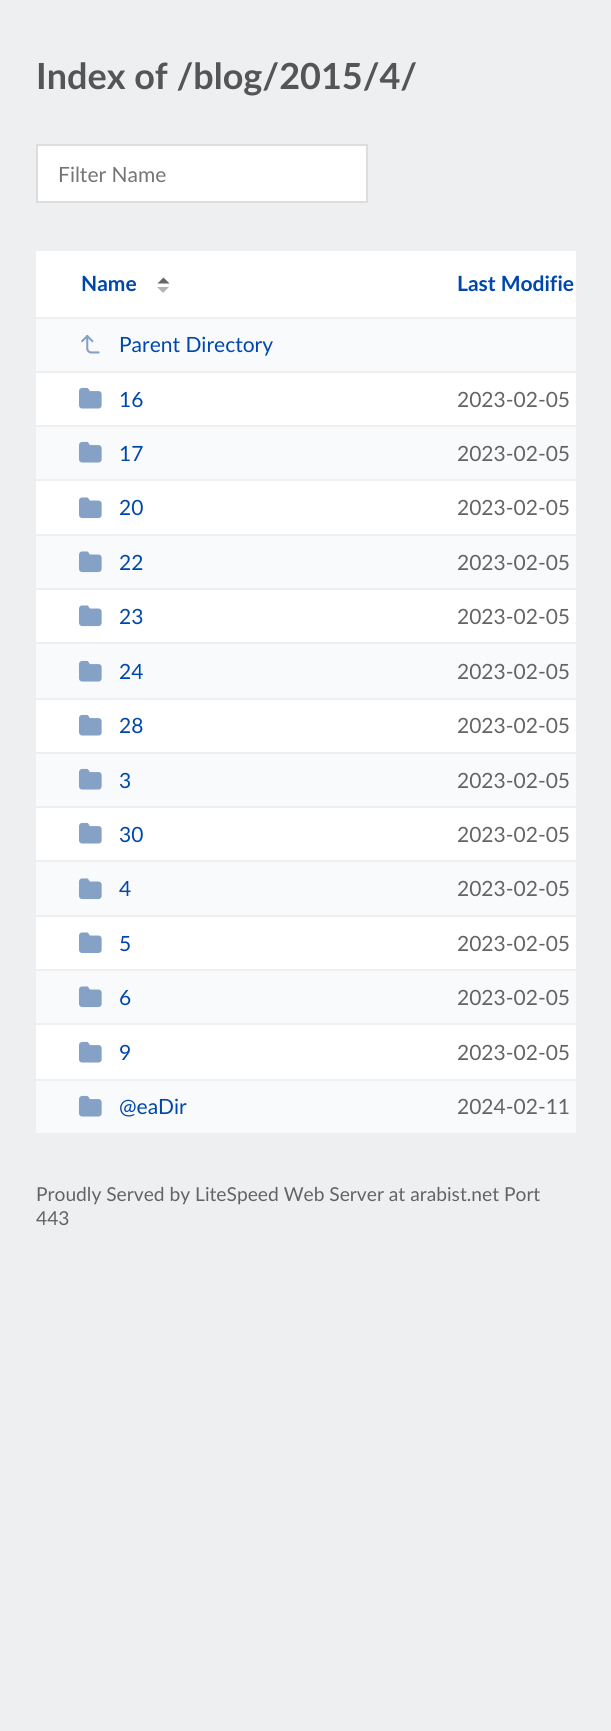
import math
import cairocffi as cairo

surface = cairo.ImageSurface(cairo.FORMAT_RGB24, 611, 1731)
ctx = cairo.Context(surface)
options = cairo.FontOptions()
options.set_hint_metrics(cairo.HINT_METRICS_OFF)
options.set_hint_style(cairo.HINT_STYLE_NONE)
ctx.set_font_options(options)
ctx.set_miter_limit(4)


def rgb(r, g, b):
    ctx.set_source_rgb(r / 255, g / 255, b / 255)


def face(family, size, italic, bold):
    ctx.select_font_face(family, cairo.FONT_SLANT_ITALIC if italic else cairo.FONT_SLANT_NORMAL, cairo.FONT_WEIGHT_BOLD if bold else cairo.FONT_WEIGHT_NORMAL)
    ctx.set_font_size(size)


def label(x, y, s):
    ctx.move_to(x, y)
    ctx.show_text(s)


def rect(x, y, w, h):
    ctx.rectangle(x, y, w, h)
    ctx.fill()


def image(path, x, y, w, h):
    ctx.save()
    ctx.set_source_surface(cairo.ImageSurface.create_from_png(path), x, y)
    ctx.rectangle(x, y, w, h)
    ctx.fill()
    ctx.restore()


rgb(237, 239, 240)
ctx.paint()
face('Lato', 36, 0, 1)
rgb(85, 85, 85)
label(36, 89, 'Index of /blog/2015/4/')
rgb(255, 255, 255)
ctx.rectangle(37, 145, 330, 57)
ctx.fill_preserve()
rgb(221, 221, 221)
ctx.stroke()
face('Lato', 21, 0, 0)
rgb(117, 117, 117)
label(58, 182, 'Filter Name')
rgb(255, 255, 255)
rect(36, 251, 540, 828)
face('Lato', 21, 0, 1)
rgb(0, 71, 171)
label(81, 291, 'Name')
rgb(102, 102, 102)
ctx.new_path()
ctx.move_to(169.5, 283.5)
ctx.line_to(157.5, 283.5)
ctx.line_to(163.5, 277.5)
ctx.close_path()
ctx.fill()
rgb(179, 179, 179)
ctx.new_path()
ctx.move_to(157, 287)
ctx.line_to(169, 287)
ctx.line_to(163, 293)
ctx.close_path()
ctx.fill()
rgb(0, 71, 171)
label(457, 291, 'Last Modifie')
rgb(248, 250, 251)
rect(36, 319, 540, 52)
rgb(237, 239, 240)
rect(36, 317, 540, 2)
rect(36, 371, 540, 2)
image('image0.png', 81, 335, 19, 19)
face('Lato', 21, 0, 0)
rgb(0, 71, 171)
label(119, 352, 'Parent Directory')
image('image1.png', 79, 387, 23, 22)
label(119, 407, '16')
rgb(100, 100, 100)
label(457, 407, '2023-02-05')
rgb(248, 250, 251)
rect(36, 427, 540, 52)
rgb(237, 239, 240)
rect(36, 425, 540, 2)
rect(36, 479, 540, 2)
image('image2.png', 79, 441, 23, 22)
rgb(0, 71, 171)
label(119, 461, '17')
rgb(100, 100, 100)
label(457, 461, '2023-02-05')
image('image3.png', 79, 497, 23, 22)
rgb(0, 71, 171)
label(119, 515, '20')
rgb(100, 100, 100)
label(457, 515, '2023-02-05')
rgb(248, 250, 251)
rect(36, 536, 540, 52)
rgb(237, 239, 240)
rect(36, 534, 540, 2)
rect(36, 588, 540, 2)
image('image4.png', 79, 551, 23, 22)
rgb(0, 71, 171)
label(119, 570, '22')
rgb(100, 100, 100)
label(457, 570, '2023-02-05')
image('image3.png', 79, 605, 23, 22)
rgb(0, 71, 171)
label(119, 624, '23')
rgb(100, 100, 100)
label(457, 624, '2023-02-05')
rgb(248, 250, 251)
rect(36, 644, 540, 54)
rgb(237, 239, 240)
rect(36, 642, 540, 2)
rect(36, 698, 540, 2)
image('image2.png', 79, 660, 23, 22)
rgb(0, 71, 171)
label(119, 679, '24')
rgb(100, 100, 100)
label(457, 679, '2023-02-05')
image('image1.png', 79, 714, 23, 22)
rgb(0, 71, 171)
label(119, 733, '28')
rgb(100, 100, 100)
label(457, 733, '2023-02-05')
rgb(248, 250, 251)
rect(36, 754, 540, 52)
rgb(237, 239, 240)
rect(36, 752, 540, 2)
rect(36, 806, 540, 2)
image('image2.png', 79, 768, 23, 22)
rgb(0, 71, 171)
label(119, 788, '3')
rgb(100, 100, 100)
label(457, 788, '2023-02-05')
image('image1.png', 79, 822, 23, 22)
rgb(0, 71, 171)
label(119, 842, '30')
rgb(100, 100, 100)
label(457, 842, '2023-02-05')
rgb(248, 250, 251)
rect(36, 862, 540, 53)
rgb(237, 239, 240)
rect(36, 860, 540, 2)
rect(36, 915, 540, 2)
image('image4.png', 79, 878, 23, 22)
rgb(0, 71, 171)
label(119, 896, '4')
rgb(100, 100, 100)
label(457, 896, '2023-02-05')
image('image3.png', 79, 932, 23, 22)
rgb(0, 71, 171)
label(119, 951, '5')
rgb(100, 100, 100)
label(457, 951, '2023-02-05')
rgb(248, 250, 251)
rect(36, 971, 540, 52)
rgb(237, 239, 240)
rect(36, 969, 540, 2)
rect(36, 1023, 540, 2)
image('image4.png', 79, 986, 23, 22)
rgb(0, 71, 171)
label(119, 1005, '6')
rgb(100, 100, 100)
label(457, 1005, '2023-02-05')
image('image1.png', 79, 1041, 23, 22)
rgb(0, 71, 171)
label(119, 1060, '9')
rgb(100, 100, 100)
label(457, 1060, '2023-02-05')
rgb(248, 250, 251)
rect(36, 1081, 540, 52)
image('image2.png', 79, 1095, 23, 22)
rgb(0, 71, 171)
label(119, 1114, '@eaDir')
rgb(100, 100, 100)
label(457, 1114, '2024-02-11')
face('Lato', 19.2, 0, 0)
label(36, 1201, 'Proudly Served by LiteSpeed Web Server at arabist.net Port')
label(36, 1225, '443')
surface.write_to_png('render.png')
